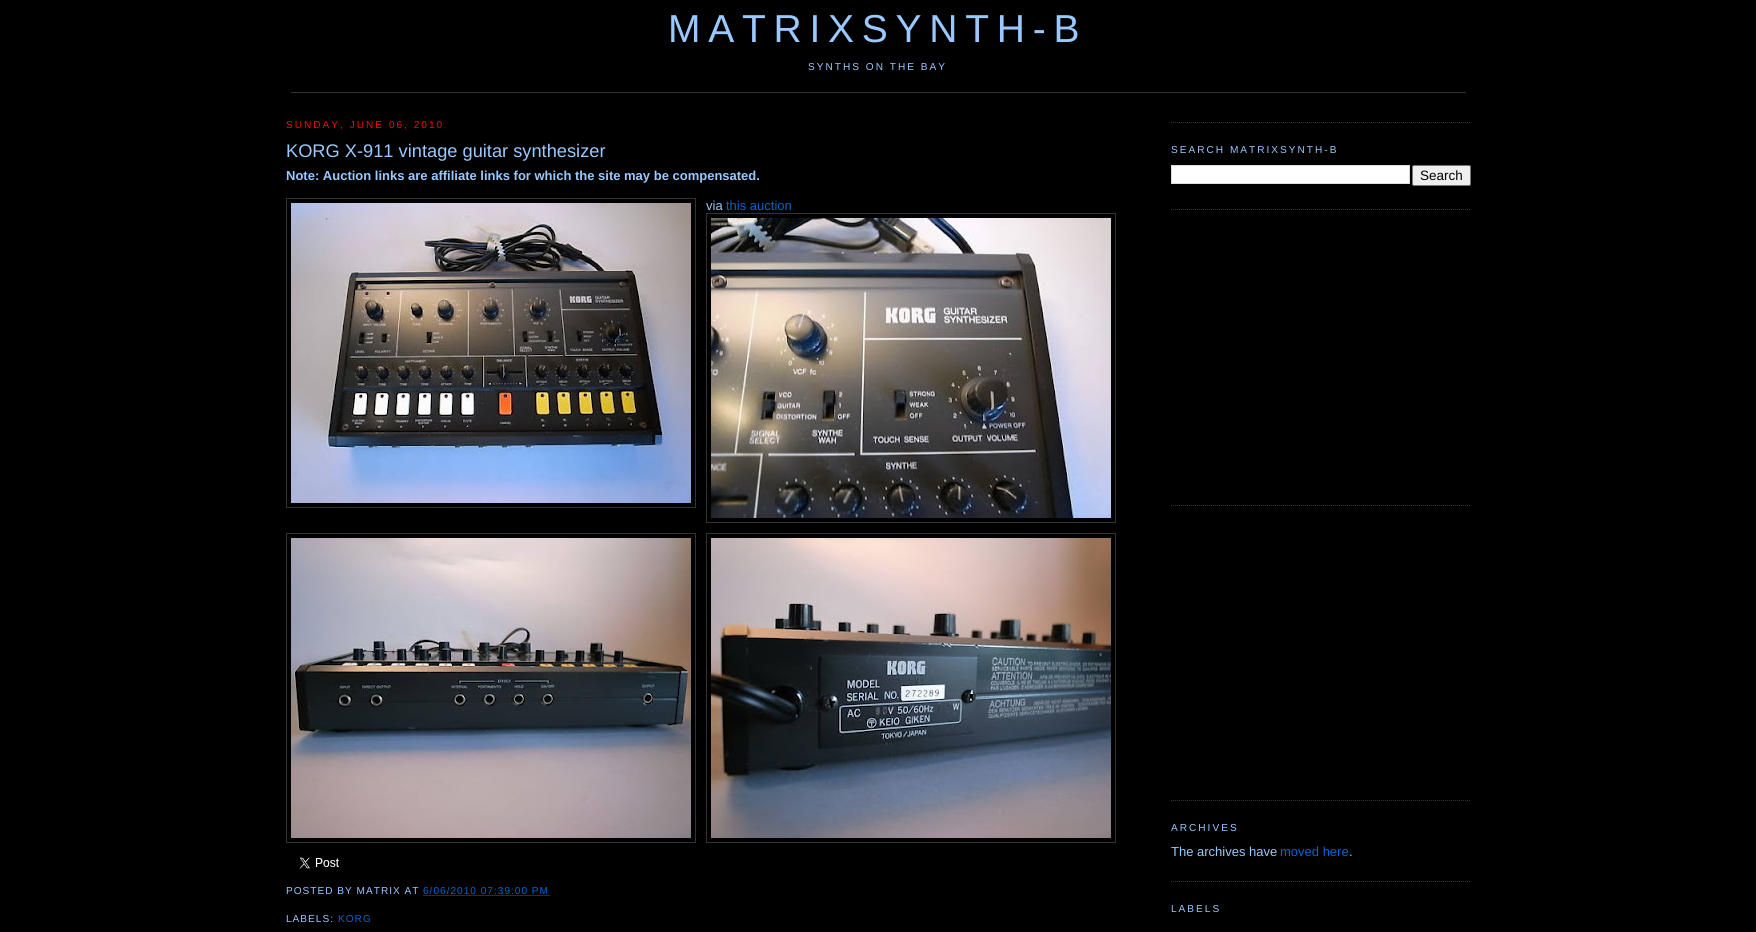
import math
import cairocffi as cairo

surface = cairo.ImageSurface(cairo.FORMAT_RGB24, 1756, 932)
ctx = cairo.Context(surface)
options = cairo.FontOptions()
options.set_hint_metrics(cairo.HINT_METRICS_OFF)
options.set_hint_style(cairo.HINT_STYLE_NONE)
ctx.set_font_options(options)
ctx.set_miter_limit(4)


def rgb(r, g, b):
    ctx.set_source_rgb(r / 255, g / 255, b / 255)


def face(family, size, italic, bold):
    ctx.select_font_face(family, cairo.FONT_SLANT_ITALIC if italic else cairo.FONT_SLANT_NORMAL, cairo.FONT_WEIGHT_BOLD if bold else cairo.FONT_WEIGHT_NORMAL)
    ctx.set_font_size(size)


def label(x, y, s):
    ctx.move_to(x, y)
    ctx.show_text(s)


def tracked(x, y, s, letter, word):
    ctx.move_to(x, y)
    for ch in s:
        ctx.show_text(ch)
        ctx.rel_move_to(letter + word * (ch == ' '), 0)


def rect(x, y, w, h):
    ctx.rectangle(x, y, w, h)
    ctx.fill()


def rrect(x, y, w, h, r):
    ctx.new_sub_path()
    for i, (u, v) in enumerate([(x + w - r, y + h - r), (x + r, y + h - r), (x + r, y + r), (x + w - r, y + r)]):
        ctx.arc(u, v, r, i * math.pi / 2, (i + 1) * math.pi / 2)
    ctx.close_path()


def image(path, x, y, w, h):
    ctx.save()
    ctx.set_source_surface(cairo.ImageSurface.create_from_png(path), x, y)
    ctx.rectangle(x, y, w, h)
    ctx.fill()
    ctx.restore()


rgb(0, 0, 0)
ctx.paint()
rgb(51, 51, 51)
rect(291, 92, 1175, 1)
face('Liberation Sans', 39, 0, 0)
rgb(153, 201, 255)
tracked(668, 42, 'MATRIXSYNTH-B', 7.75, 0)
face('Liberation Sans', 10.1, 0, 0)
tracked(808, 70, 'SYNTHS ON THE BAY', 2, 0)
rgb(255, 0, 0)
tracked(286, 128, 'SUNDAY, JUNE 06, 2010', 2, 0)
face('Liberation Sans', 18.25, 0, 0)
rgb(153, 201, 255)
label(286, 157, 'KORG X-911 vintage guitar synthesizer')
face('Liberation Sans', 13, 0, 1)
label(286, 180, 'Note: Auction links are affiliate links for which the site may be compensated.')
ctx.rectangle(286.5, 198.5, 409, 309)
rgb(51, 51, 51)
ctx.set_line_width(1)
ctx.stroke()
image('image0.png', 291, 203, 400, 300)
face('Liberation Sans', 13, 0, 0)
rgb(153, 201, 255)
label(706, 210, 'via')
rgb(0, 102, 204)
label(726, 210, 'this auction')
ctx.rectangle(706.5, 213.5, 409, 309)
rgb(51, 51, 51)
ctx.stroke()
image('image1.png', 711, 218, 400, 300)
ctx.rectangle(286.5, 533.5, 409, 309)
ctx.stroke()
image('image2.png', 291, 538, 400, 300)
ctx.rectangle(706.5, 533.5, 409, 309)
ctx.stroke()
image('image3.png', 711, 538, 400, 300)
image('image4.png', 299, 857, 40, 12)
face('Liberation Sans', 10.1, 0, 0)
rgb(153, 201, 255)
tracked(286, 894, 'POSTED BY MATRIX AT', 1, 0)
rgb(0, 102, 204)
tracked(423, 894, '6/06/2010 07:39:00 PM', 1, 0)
ctx.new_path()
ctx.move_to(423.5, 895.5)
ctx.line_to(550, 895.5)
ctx.set_dash([1, 1])
ctx.stroke()
rgb(153, 201, 255)
tracked(286, 922, 'LABELS:', 1, 0)
rgb(0, 102, 204)
tracked(338, 922, 'KORG', 1, 0)
ctx.new_path()
ctx.move_to(1171, 122.5)
ctx.line_to(1471, 122.5)
rgb(51, 51, 51)
ctx.stroke()
ctx.new_path()
ctx.move_to(1171, 209.5)
ctx.line_to(1471, 209.5)
ctx.stroke()
rgb(153, 201, 255)
tracked(1171, 153, 'SEARCH MATRIXSYNTH-B', 2, 0)
rgb(255, 255, 255)
ctx.rectangle(1171.5, 165.5, 238, 18)
ctx.fill_preserve()
rgb(221, 221, 221)
ctx.set_dash([])
ctx.stroke()
rgb(239, 239, 239)
rrect(1412.5, 165.5, 58, 20, 1.5)
ctx.fill_preserve()
rgb(118, 118, 118)
ctx.stroke()
face('Liberation Sans', 13.5, 0, 0)
rgb(0, 0, 0)
label(1420, 180, 'Search')
ctx.new_path()
ctx.move_to(1171, 505.5)
ctx.line_to(1471, 505.5)
rgb(51, 51, 51)
ctx.set_dash([1, 1])
ctx.stroke()
ctx.new_path()
ctx.move_to(1171, 800.5)
ctx.line_to(1471, 800.5)
ctx.stroke()
ctx.new_path()
ctx.move_to(1171, 881.5)
ctx.line_to(1471, 881.5)
ctx.stroke()
face('Liberation Sans', 10.1, 0, 0)
rgb(153, 201, 255)
tracked(1171, 831, 'ARCHIVES', 2, 0)
face('Liberation Sans', 13, 0, 0)
label(1171, 856, 'The archives have')
rgb(0, 102, 204)
label(1280, 856, 'moved here')
rgb(153, 201, 255)
label(1349, 856, '.')
face('Liberation Sans', 10.1, 0, 0)
tracked(1171, 912, 'LABELS', 2, 0)
surface.write_to_png('render.png')
